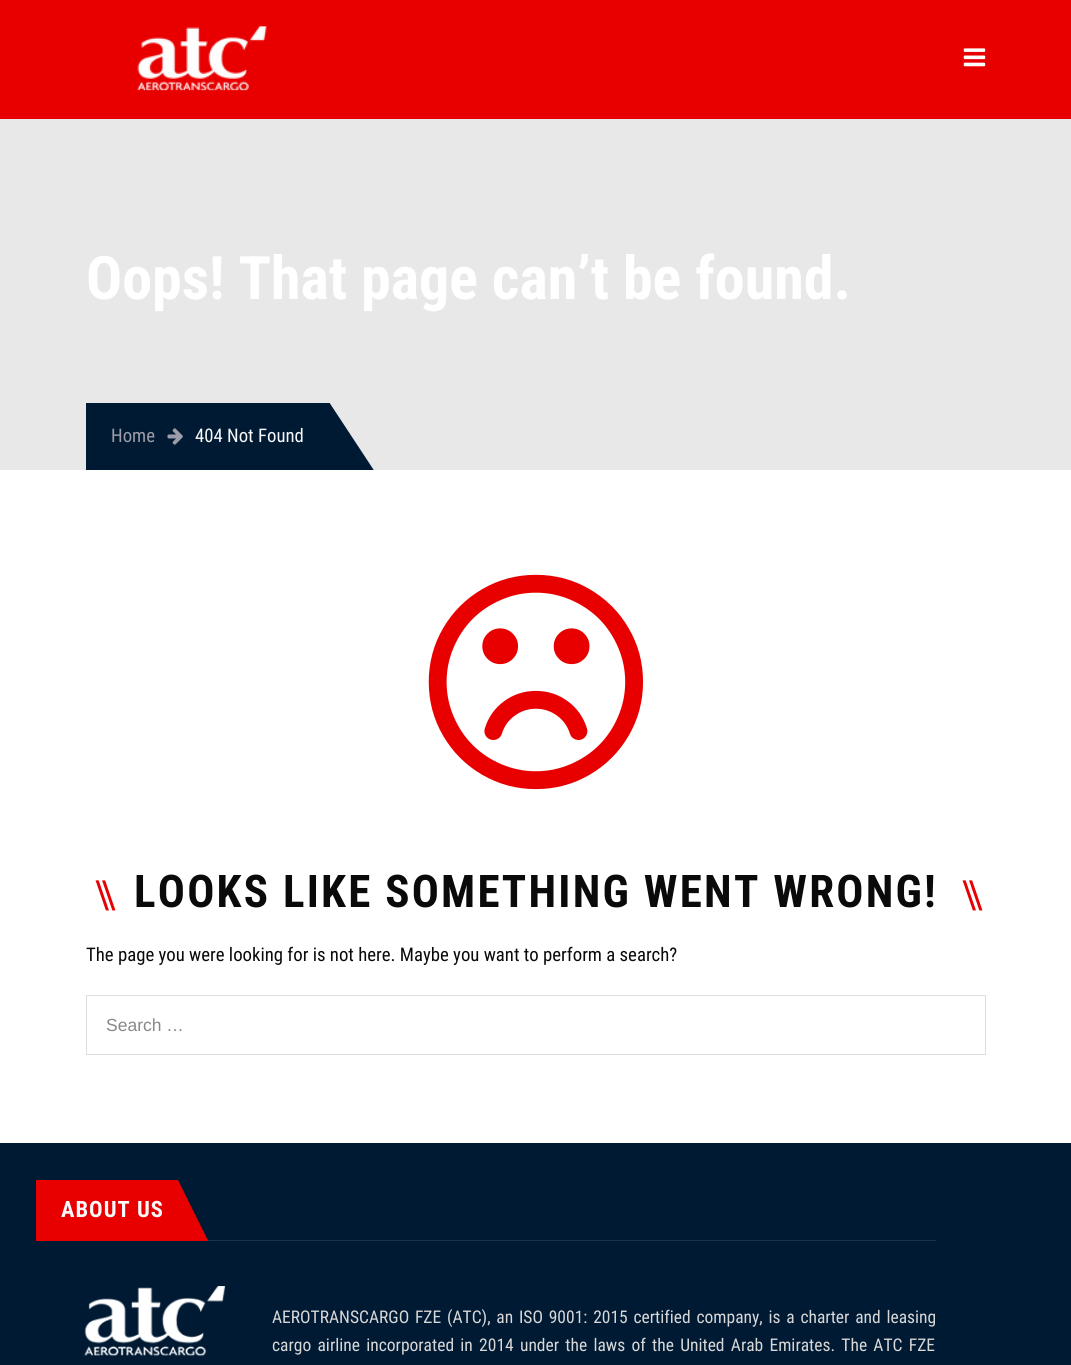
import math
import cairocffi as cairo

surface = cairo.ImageSurface(cairo.FORMAT_RGB24, 1071, 1365)
ctx = cairo.Context(surface)
options = cairo.FontOptions()
options.set_hint_metrics(cairo.HINT_METRICS_OFF)
options.set_hint_style(cairo.HINT_STYLE_NONE)
ctx.set_font_options(options)
ctx.set_miter_limit(4)


def rgb(r, g, b):
    ctx.set_source_rgb(r / 255, g / 255, b / 255)


def face(family, size, italic, bold):
    ctx.select_font_face(family, cairo.FONT_SLANT_ITALIC if italic else cairo.FONT_SLANT_NORMAL, cairo.FONT_WEIGHT_BOLD if bold else cairo.FONT_WEIGHT_NORMAL)
    ctx.set_font_size(size)


def label(x, y, s):
    ctx.move_to(x, y)
    ctx.show_text(s)


def tracked(x, y, s, letter, word):
    ctx.move_to(x, y)
    for ch in s:
        ctx.show_text(ch)
        ctx.rel_move_to(letter + word * (ch == ' '), 0)


def rect(x, y, w, h):
    ctx.rectangle(x, y, w, h)
    ctx.fill()


def image(path, x, y, w, h):
    ctx.save()
    ctx.set_source_surface(cairo.ImageSurface.create_from_png(path), x, y)
    ctx.rectangle(x, y, w, h)
    ctx.fill()
    ctx.restore()


rgb(255, 255, 255)
ctx.paint()
rgb(232, 0, 0)
rect(0, 0, 1071, 119)
image('image0.png', 137, 26, 130, 65)
image('image1.png', 963, 48, 23, 19)
rgb(232, 232, 232)
rect(0, 119, 1071, 351)
face('Roboto Condensed', 60, 0, 1)
rgb(255, 255, 255)
label(86, 299, 'Oops! That page can’t be found.')
rgb(0, 26, 51)
rect(86, 403, 243, 67)
face('Roboto Condensed', 18.75, 0, 0)
rgb(157, 157, 170)
label(111, 442, 'Home')
image('image2.png', 167, 428, 16, 17)
rgb(249, 249, 249)
label(195, 442, '404 Not Found')
ctx.save()
ctx.rectangle(86, 403, 900, 67)
ctx.clip()
rgb(0, 26, 51)
ctx.new_path()
ctx.move_to(329, 478)
ctx.line_to(329, 402)
ctx.line_to(379, 478)
ctx.close_path()
ctx.fill()
ctx.restore()
image('image3.png', 428, 574, 215, 216)
face('Liberation Serif', 45, 0, 1)
rgb(232, 0, 0)
tracked(96, 910, '\\\\', -6, 0)
face('Roboto Condensed', 45, 0, 1)
rgb(10, 10, 10)
tracked(134, 907, 'LOOKS LIKE SOMETHING WENT WRONG!', 2.25, 0)
face('Liberation Serif', 45, 0, 1)
rgb(232, 0, 0)
tracked(963, 910, '\\\\', -6, 0)
face('Roboto Condensed', 18.75, 0, 0)
rgb(10, 10, 10)
label(86, 961, 'The page you were looking for is not here. Maybe you want to perform a search?')
ctx.rectangle(86.5, 995.5, 899, 59)
rgb(221, 221, 221)
ctx.set_line_width(1)
ctx.stroke()
face('Liberation Sans', 17.5, 0, 0)
rgb(136, 136, 136)
label(106, 1031, 'Search …')
rgb(0, 26, 51)
rect(0, 1143, 1071, 222)
rgb(232, 0, 0)
rect(36, 1180, 142, 61)
face('Roboto Condensed', 22.5, 0, 1)
rgb(249, 249, 249)
tracked(61, 1217, 'ABOUT US', 1, 0)
rgb(26, 49, 71)
rect(207, 1240, 729, 1)
ctx.save()
ctx.rectangle(36, 1180, 900, 61)
ctx.clip()
rgb(232, 0, 0)
ctx.new_path()
ctx.move_to(178, 1305)
ctx.line_to(178, 1180)
ctx.line_to(240, 1305)
ctx.close_path()
ctx.fill()
ctx.restore()
image('image4.png', 84, 1286, 142, 70)
face('Roboto Condensed', 17.5, 0, 0)
rgb(216, 216, 216)
tracked(272, 1323, 'AEROTRANSCARGO FZE (ATC), an ISO 9001: 2015 certified company, is a charter and leasing', 0, 1.75)
tracked(272, 1351, 'cargo airline incorporated in 2014 under the laws of the United Arab Emirates. The ATC FZE', 0, 2.25)
surface.write_to_png('render.png')
